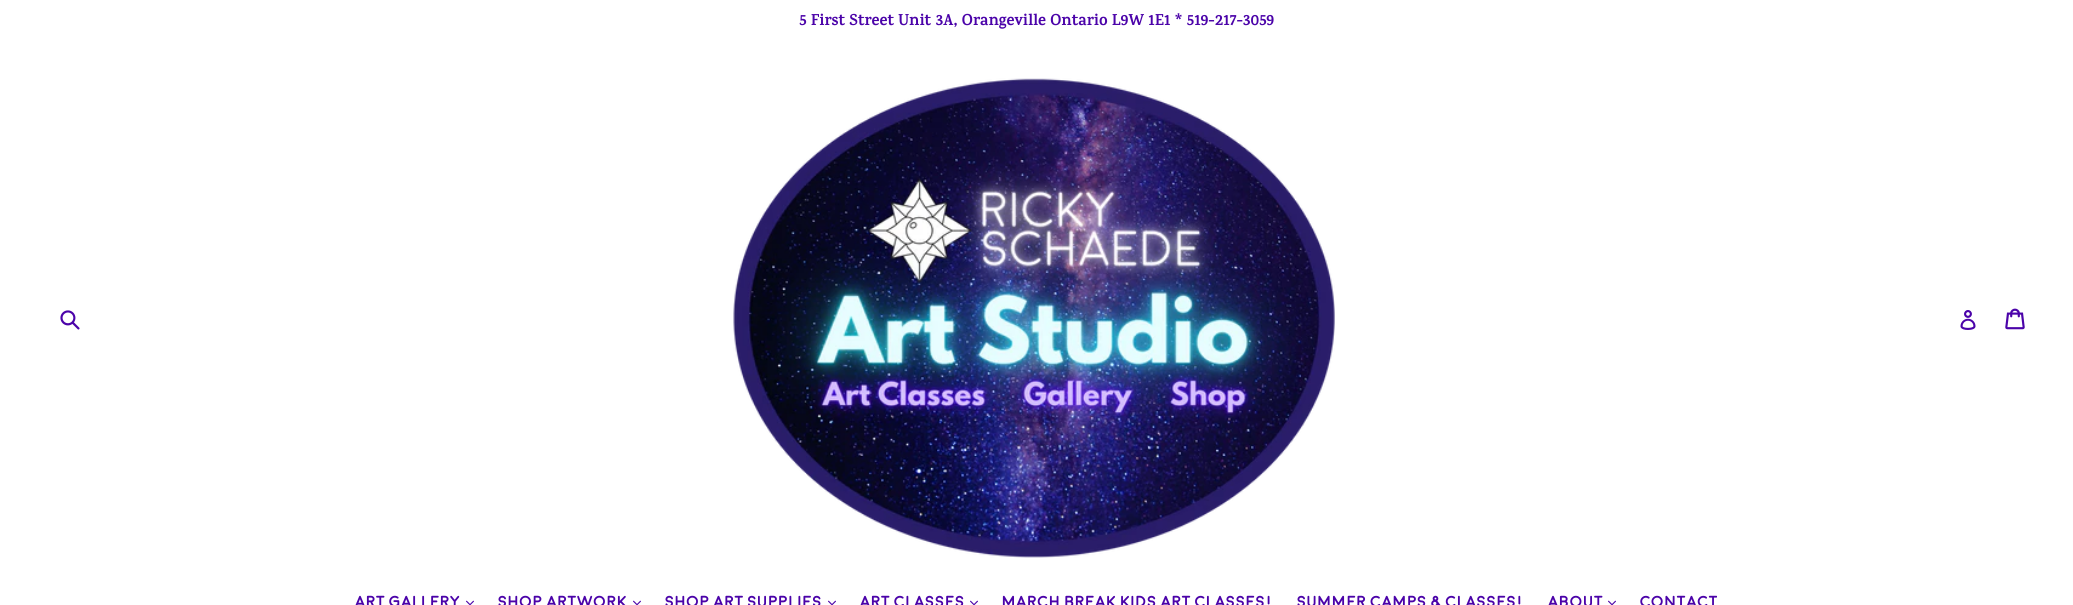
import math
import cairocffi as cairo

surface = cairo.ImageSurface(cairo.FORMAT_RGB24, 2073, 605)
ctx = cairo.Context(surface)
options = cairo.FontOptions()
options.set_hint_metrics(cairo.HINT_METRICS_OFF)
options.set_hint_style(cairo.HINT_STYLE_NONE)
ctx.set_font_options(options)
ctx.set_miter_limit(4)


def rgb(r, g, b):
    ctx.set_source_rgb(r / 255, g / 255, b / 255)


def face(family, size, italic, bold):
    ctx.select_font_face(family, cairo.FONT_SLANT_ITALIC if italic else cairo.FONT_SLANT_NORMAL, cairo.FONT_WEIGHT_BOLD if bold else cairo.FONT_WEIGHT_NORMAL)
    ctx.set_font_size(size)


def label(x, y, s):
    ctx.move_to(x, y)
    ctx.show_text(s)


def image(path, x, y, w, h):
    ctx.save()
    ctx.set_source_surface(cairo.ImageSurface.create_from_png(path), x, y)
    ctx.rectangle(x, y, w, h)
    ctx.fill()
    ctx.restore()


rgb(255, 255, 255)
ctx.paint()
face('Karma', 16, 0, 1)
rgb(75, 3, 169)
label(799, 25, '5 First Street Unit 3A, Orangeville Ontario L9W 1E1 * 519-217-3059')
image('image0.png', 60, 310, 20, 20)
image('image1.png', 733, 78, 602, 480)
image('image2.png', 1960, 310, 16, 20)
image('image3.png', 2005, 308, 20, 22)
face('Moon', 16, 0, 1)
label(355, 607, 'Art Gallery')
image('image4.png', 466, 600, 8, 5)
label(498, 607, 'Shop Artwork')
image('image4.png', 633, 600, 8, 5)
label(665, 607, 'Shop Art Supplies')
image('image4.png', 828, 600, 8, 5)
label(860, 607, 'Art Classes')
image('image4.png', 970, 600, 8, 5)
label(1002, 607, 'March Break Kids Art Classes!')
label(1297, 607, 'Summer Camps & Classes!')
label(1548, 607, 'About')
image('image4.png', 1608, 600, 8, 5)
label(1640, 607, 'Contact')
surface.write_to_png('render.png')
